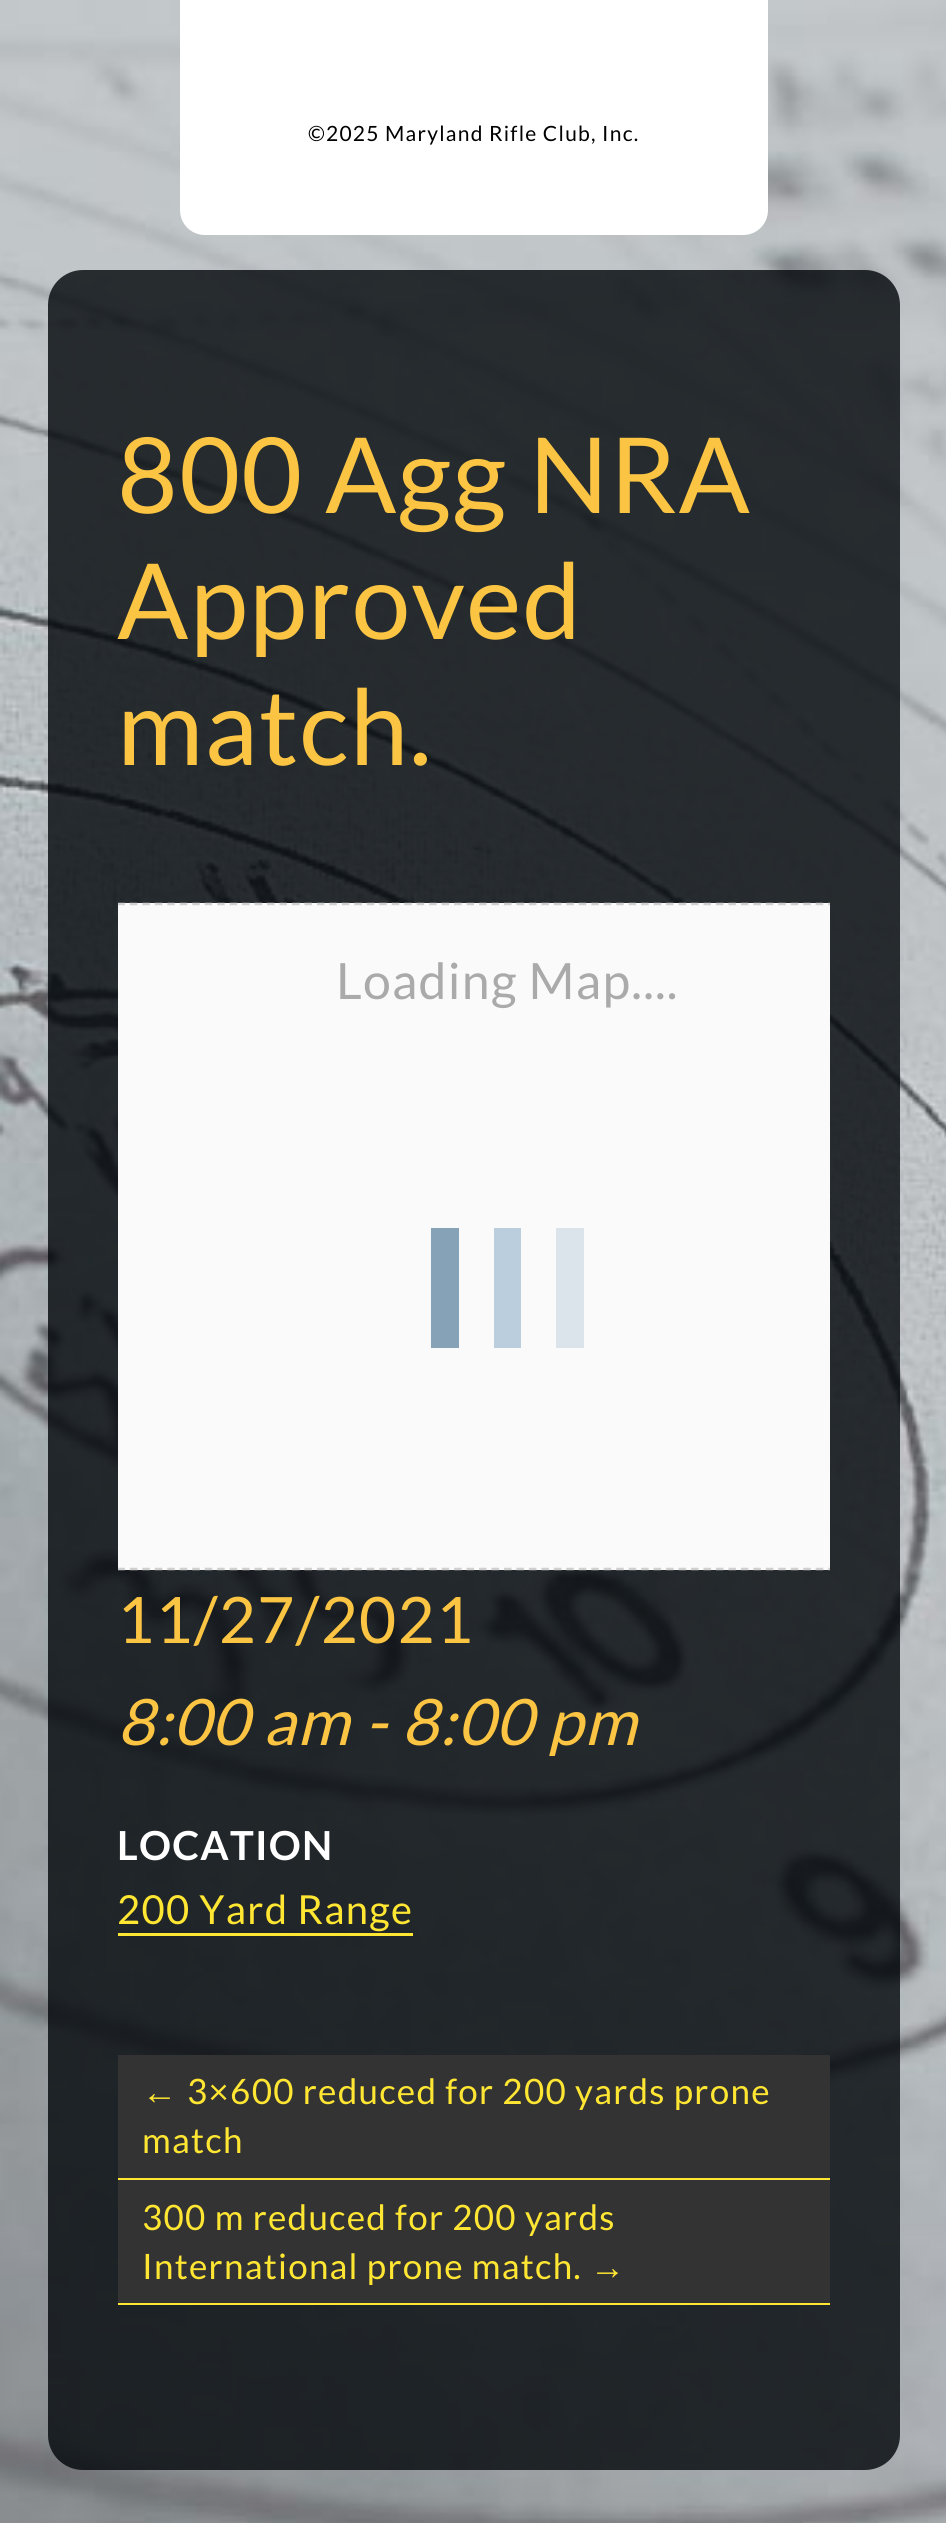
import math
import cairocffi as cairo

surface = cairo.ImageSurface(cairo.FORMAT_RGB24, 946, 2523)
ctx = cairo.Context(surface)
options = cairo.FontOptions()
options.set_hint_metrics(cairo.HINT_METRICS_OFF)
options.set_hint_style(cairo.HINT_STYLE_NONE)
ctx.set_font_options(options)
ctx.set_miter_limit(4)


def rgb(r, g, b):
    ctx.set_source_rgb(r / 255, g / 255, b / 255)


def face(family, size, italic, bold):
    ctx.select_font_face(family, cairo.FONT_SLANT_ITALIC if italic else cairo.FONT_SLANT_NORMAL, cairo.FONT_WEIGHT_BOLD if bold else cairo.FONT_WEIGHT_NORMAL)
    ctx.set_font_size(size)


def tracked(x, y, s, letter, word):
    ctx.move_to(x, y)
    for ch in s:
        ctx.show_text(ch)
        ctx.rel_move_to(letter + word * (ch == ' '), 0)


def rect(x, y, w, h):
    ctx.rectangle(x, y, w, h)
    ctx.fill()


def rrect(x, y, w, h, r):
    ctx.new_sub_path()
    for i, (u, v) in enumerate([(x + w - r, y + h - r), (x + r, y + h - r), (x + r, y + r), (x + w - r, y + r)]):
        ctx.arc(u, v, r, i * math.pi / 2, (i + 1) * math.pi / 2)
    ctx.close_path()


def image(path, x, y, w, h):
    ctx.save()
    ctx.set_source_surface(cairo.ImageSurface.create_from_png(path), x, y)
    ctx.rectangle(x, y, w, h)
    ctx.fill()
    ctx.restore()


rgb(255, 255, 255)
ctx.paint()
image('image0.png', 0, 0, 946, 2523)
rgb(255, 255, 255)
ctx.new_path()
ctx.move_to(180, 0)
ctx.line_to(768, 0)
ctx.line_to(768, 210)
ctx.curve_to(768, 224, 757, 235, 743, 235)
ctx.line_to(205, 235)
ctx.curve_to(191, 235, 180, 224, 180, 210)
ctx.close_path()
ctx.fill()
face('Lato', 21, 0, 0)
rgb(0, 0, 0)
tracked(308, 141, '©2025 Maryland Rifle Club, Inc.', 1.25, 0)
ctx.set_source_rgba(0, 0.02, 0.039, 0.8)
rrect(48, 270, 852, 2200, 35)
ctx.fill()
face('Lato', 105, 0, 0)
rgb(251, 197, 67)
tracked(117, 513, '800 Agg NRA', 1.25, 0)
tracked(117, 639, 'Approved', 1.25, 0)
tracked(117, 765, 'match.', 1.25, 0)
rgb(250, 250, 250)
rect(118, 903, 712, 667)
ctx.save()
ctx.rectangle(118, 410, 712, 1920)
ctx.clip()
ctx.new_path()
ctx.move_to(80, 904)
ctx.line_to(935, 904)
rgb(208, 208, 208)
ctx.set_line_width(2.5)
ctx.set_dash([7.5, 4.97])
ctx.stroke()
ctx.new_path()
ctx.move_to(80, 1569)
ctx.line_to(935, 1569)
ctx.stroke()
ctx.restore()
face('Lato', 50, 0, 0)
rgb(170, 170, 170)
tracked(336, 999, 'Loading Map....', 1.25, 0)
rgb(133, 162, 182)
rect(431, 1228, 28, 120)
rgb(187, 206, 221)
rect(494, 1228, 27, 120)
rgb(220, 228, 235)
rect(556, 1228, 28, 120)
face('Lato', 64, 0, 0)
rgb(251, 197, 67)
tracked(117, 1643, '11/27/2021', 1.25, 0)
face('Lato', 64, 1, 0)
tracked(117, 1745, '8:00 am - 8:00 pm', 1.25, 0)
face('Lato', 40, 0, 1)
rgb(255, 255, 255)
tracked(117, 1860, 'LOCATION', 1.25, 0)
face('Lato', 40, 0, 0)
rgb(255, 230, 51)
tracked(117, 1924, '200 Yard Range', 1.25, 0)
rect(118, 1933, 295, 3)
rgb(51, 51, 51)
rect(118, 2055, 712, 123)
rgb(255, 230, 51)
rect(118, 2178, 712, 2)
face('Liberation Sans', 35, 0, 0)
tracked(142, 2104, '←', 1.25, 0)
face('Lato', 35, 0, 0)
tracked(187, 2104, '3×600 reduced for 200 yards prone', 1.25, 0)
tracked(142, 2153, 'match', 1.25, 0)
rgb(51, 51, 51)
rect(118, 2180, 712, 123)
rgb(255, 230, 51)
rect(118, 2303, 712, 2)
tracked(142, 2230, '300 m reduced for 200 yards', 1.25, 0)
tracked(142, 2279, 'International prone match.', 1.25, 0)
face('Liberation Sans', 35, 0, 0)
tracked(590, 2279, '→', 1.25, 0)
surface.write_to_png('render.png')
